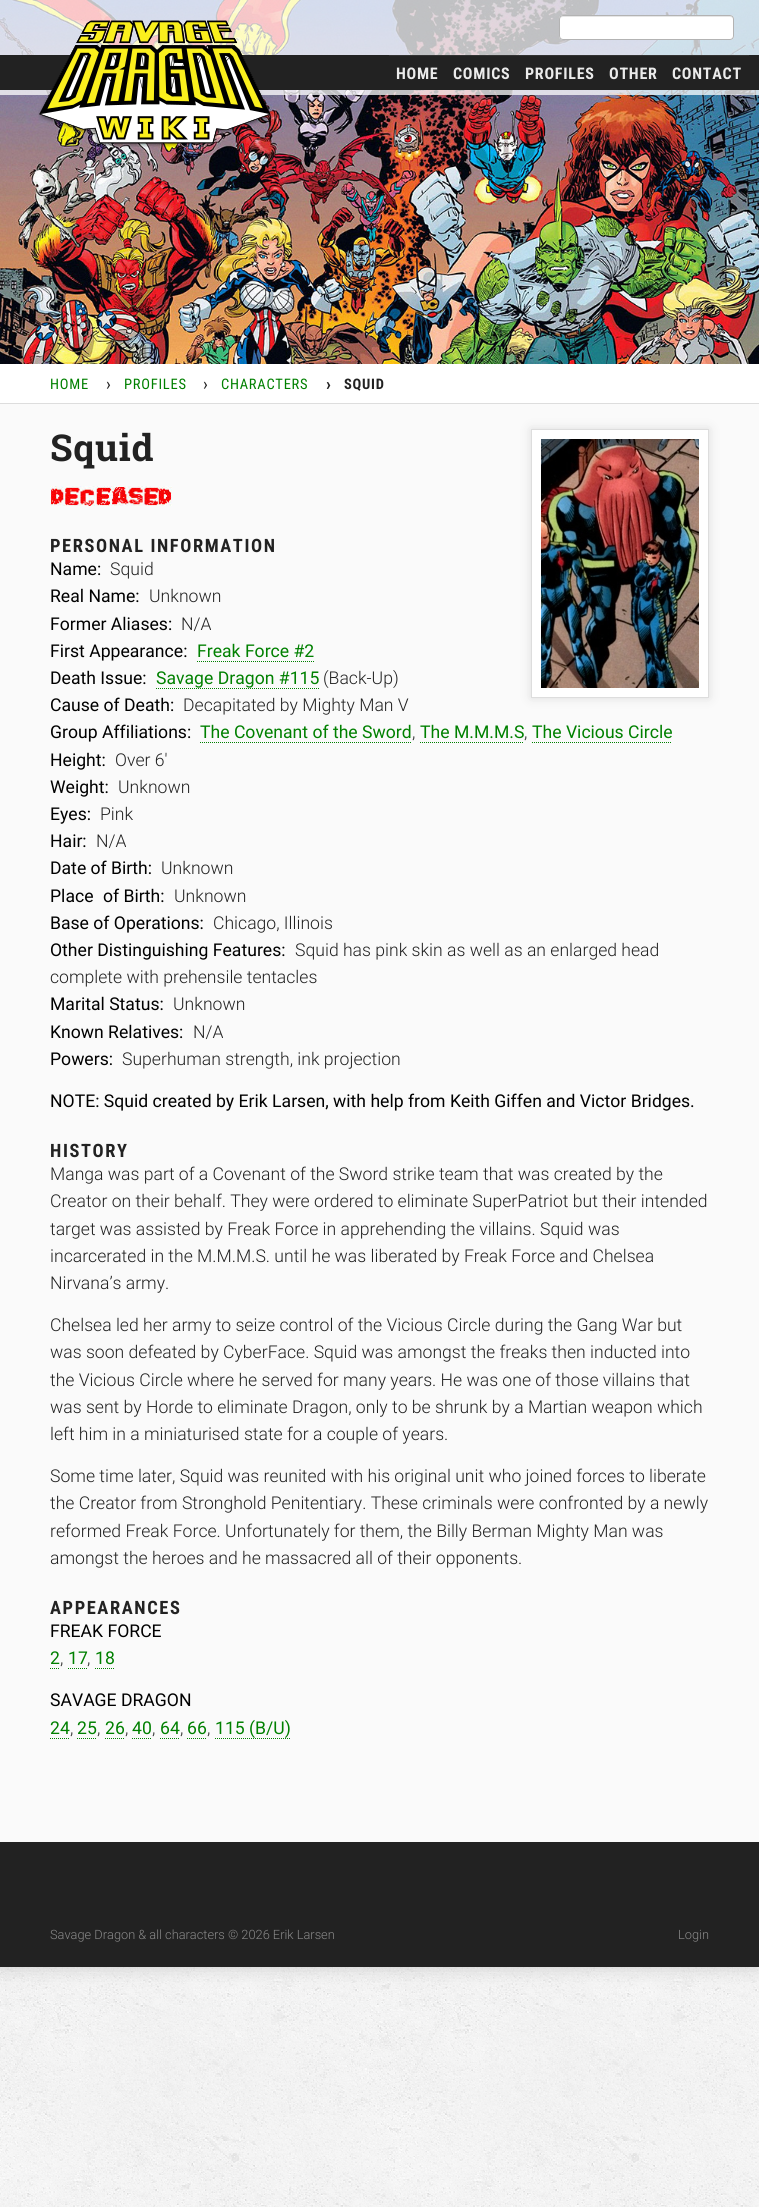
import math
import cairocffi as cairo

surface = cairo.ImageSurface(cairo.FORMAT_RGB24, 759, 2207)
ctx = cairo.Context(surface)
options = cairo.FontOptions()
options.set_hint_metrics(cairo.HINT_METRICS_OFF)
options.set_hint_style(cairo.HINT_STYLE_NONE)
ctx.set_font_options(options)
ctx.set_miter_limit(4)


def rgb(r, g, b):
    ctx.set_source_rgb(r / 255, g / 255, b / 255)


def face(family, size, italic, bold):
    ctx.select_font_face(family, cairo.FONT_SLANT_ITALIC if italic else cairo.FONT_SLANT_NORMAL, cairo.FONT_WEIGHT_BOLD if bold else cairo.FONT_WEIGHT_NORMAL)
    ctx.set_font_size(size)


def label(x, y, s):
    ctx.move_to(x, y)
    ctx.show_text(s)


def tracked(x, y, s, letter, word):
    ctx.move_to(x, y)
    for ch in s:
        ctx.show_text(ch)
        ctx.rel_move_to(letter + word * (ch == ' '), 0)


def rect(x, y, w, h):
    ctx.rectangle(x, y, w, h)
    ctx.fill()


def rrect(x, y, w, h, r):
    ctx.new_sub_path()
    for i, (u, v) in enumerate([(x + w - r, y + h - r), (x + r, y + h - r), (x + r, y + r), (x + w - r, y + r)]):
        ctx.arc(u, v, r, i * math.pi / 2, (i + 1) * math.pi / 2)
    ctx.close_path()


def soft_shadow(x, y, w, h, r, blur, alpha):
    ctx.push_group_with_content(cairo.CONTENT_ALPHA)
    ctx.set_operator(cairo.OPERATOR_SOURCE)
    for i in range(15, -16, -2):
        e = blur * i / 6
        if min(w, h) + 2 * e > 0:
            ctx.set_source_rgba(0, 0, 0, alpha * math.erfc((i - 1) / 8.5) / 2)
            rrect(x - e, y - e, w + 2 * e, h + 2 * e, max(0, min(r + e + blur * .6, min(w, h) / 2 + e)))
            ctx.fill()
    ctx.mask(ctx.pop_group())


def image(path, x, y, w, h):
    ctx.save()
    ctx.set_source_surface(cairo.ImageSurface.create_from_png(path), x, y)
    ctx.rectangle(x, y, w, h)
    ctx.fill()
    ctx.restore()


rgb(255, 255, 255)
ctx.paint()
image('image0.png', 0, 1967, 759, 240)
rgb(204, 204, 204)
soft_shadow(0, 0, 759, 1967, 0, 10, 1)
image('image1.png', 0, 0, 759, 364)
ctx.set_source_rgba(1, 1, 1, 0.75)
rect(0, 0, 759, 95)
rgb(34, 34, 34)
rect(0, 55, 759, 35)
image('image2.png', 38, 20, 234, 127)
image('image3.png', 39, 20, 232, 124)
rgb(255, 255, 255)
rrect(559, 15, 175, 25, 4)
ctx.fill()
rgb(230, 230, 230)
ctx.new_path()
ctx.move_to(563, 17)
ctx.line_to(730, 17)
ctx.curve_to(732, 17, 733, 18, 733, 20)
ctx.line_to(733, 19)
ctx.curve_to(733, 17, 732, 16, 730, 16)
ctx.line_to(563, 16)
ctx.curve_to(561, 16, 560, 17, 560, 19)
ctx.line_to(560, 20)
ctx.curve_to(560, 18, 561, 17, 563, 17)
ctx.close_path()
ctx.fill()
rrect(559.5, 15.5, 174, 24, 3.5)
rgb(179, 179, 179)
ctx.set_line_width(1)
ctx.stroke()
rgb(51, 51, 51)
rect(389, 55, 360, 1)
face('Roboto Condensed', 16, 0, 1)
rgb(235, 235, 235)
tracked(396, 79, 'HOME', 0.75, 0)
tracked(453, 79, 'COMICS', 0.75, 0)
tracked(525, 79, 'PROFILES', 0.75, 0)
tracked(609, 79, 'OTHER', 0.75, 0)
tracked(672, 79, 'CONTACT', 0.75, 0)
rgb(255, 255, 255)
rect(0, 364, 759, 39)
rgb(221, 221, 221)
rect(0, 403, 759, 1)
face('Roboto Condensed', 14.5, 0, 0)
rgb(0, 128, 0)
tracked(50, 389, 'HOME', 0.75, 0)
face('Roboto Condensed', 17.6, 0, 0)
rgb(34, 34, 34)
tracked(106, 390, '›', 0.75, 0)
face('Roboto Condensed', 14.5, 0, 0)
rgb(0, 128, 0)
tracked(124, 389, 'PROFILES', 0.75, 0)
face('Roboto Condensed', 17.6, 0, 0)
rgb(34, 34, 34)
tracked(203, 390, '›', 0.75, 0)
face('Roboto Condensed', 14.5, 0, 0)
rgb(0, 128, 0)
tracked(221, 389, 'CHARACTERS', 0.75, 0)
face('Roboto Condensed', 17.6, 0, 1)
rgb(34, 34, 34)
tracked(326, 390, '›', 0.75, 0)
face('Roboto Condensed', 14.5, 0, 1)
tracked(344, 389, 'SQUID', 0.75, 0)
rgb(250, 250, 250)
rect(0, 404, 759, 1438)
face('Roboto Slab', 37, 0, 1)
rgb(34, 34, 34)
tracked(50, 461, 'Squid', 0.75, 0)
rgb(221, 221, 221)
soft_shadow(531, 429, 178, 269, 0, 5, 1)
rgb(255, 255, 255)
ctx.rectangle(531.5, 429.5, 177, 268)
ctx.fill_preserve()
rgb(221, 221, 221)
ctx.stroke()
image('image4.png', 541, 439, 158, 249)
image('image5.png', 50, 486, 122, 20)
face('Roboto Condensed', 18.4, 0, 1)
rgb(34, 34, 34)
tracked(50, 552, 'PERSONAL INFORMATION', 1.6, 0)
face('Roboto', 17.6, 0, 0)
rgb(0, 0, 0)
label(50, 575, 'Name:')
face('Roboto Light', 17.6, 0, 0)
rgb(34, 34, 34)
label(110, 575, 'Squid')
face('Roboto', 17.6, 0, 0)
rgb(0, 0, 0)
label(50, 602, 'Real Name:')
face('Roboto Light', 17.6, 0, 0)
rgb(34, 34, 34)
label(149, 602, 'Unknown')
face('Roboto', 17.6, 0, 0)
rgb(0, 0, 0)
label(50, 630, 'Former Aliases:')
face('Roboto Light', 17.6, 0, 0)
rgb(34, 34, 34)
label(181, 630, 'N/A')
face('Roboto', 17.6, 0, 0)
rgb(0, 0, 0)
label(50, 657, 'First Appearance:')
rgb(0, 128, 0)
label(197, 657, 'Freak Force #2')
ctx.new_path()
ctx.move_to(197, 661.5)
ctx.line_to(314, 661.5)
ctx.set_dash([1, 1])
ctx.stroke()
rgb(0, 0, 0)
label(50, 684, 'Death Issue:')
rgb(0, 128, 0)
label(156, 684, 'Savage Dragon #115')
ctx.new_path()
ctx.move_to(156, 688.5)
ctx.line_to(319, 688.5)
ctx.stroke()
face('Roboto Light', 17.6, 0, 0)
rgb(34, 34, 34)
label(323, 684, '(Back-Up)')
face('Roboto', 17.6, 0, 0)
rgb(0, 0, 0)
label(50, 711, 'Cause of Death:')
face('Roboto Light', 17.6, 0, 0)
rgb(34, 34, 34)
label(183, 711, 'Decapitated by Mighty Man V')
face('Roboto', 17.6, 0, 0)
rgb(0, 0, 0)
label(50, 738, 'Group Affiliations:')
rgb(0, 128, 0)
label(200, 738, 'The Covenant of the Sword')
ctx.new_path()
ctx.move_to(200, 742.5)
ctx.line_to(412, 742.5)
ctx.stroke()
face('Roboto Light', 17.6, 0, 0)
rgb(34, 34, 34)
label(412, 738, ',')
face('Roboto', 17.6, 0, 0)
rgb(0, 128, 0)
label(420, 738, 'The M.M.M.S')
ctx.new_path()
ctx.move_to(420, 742.5)
ctx.line_to(524, 742.5)
ctx.stroke()
face('Roboto Light', 17.6, 0, 0)
rgb(34, 34, 34)
label(524, 738, ',')
face('Roboto', 17.6, 0, 0)
rgb(0, 128, 0)
label(532, 738, 'The Vicious Circle')
ctx.new_path()
ctx.move_to(532, 742.5)
ctx.line_to(672, 742.5)
ctx.stroke()
rgb(0, 0, 0)
label(50, 766, 'Height:')
face('Roboto Light', 17.6, 0, 0)
rgb(34, 34, 34)
label(115, 766, 'Over 6′')
face('Roboto', 17.6, 0, 0)
rgb(0, 0, 0)
label(50, 793, 'Weight:')
face('Roboto Light', 17.6, 0, 0)
rgb(34, 34, 34)
label(118, 793, 'Unknown')
face('Roboto', 17.6, 0, 0)
rgb(0, 0, 0)
label(50, 820, 'Eyes:')
face('Roboto Light', 17.6, 0, 0)
rgb(34, 34, 34)
label(100, 820, 'Pink')
face('Roboto', 17.6, 0, 0)
rgb(0, 0, 0)
label(50, 847, 'Hair:')
face('Roboto Light', 17.6, 0, 0)
rgb(34, 34, 34)
label(96, 847, 'N/A')
face('Roboto', 17.6, 0, 0)
rgb(0, 0, 0)
label(50, 874, 'Date of Birth:')
face('Roboto Light', 17.6, 0, 0)
rgb(34, 34, 34)
label(161, 874, 'Unknown')
face('Roboto', 17.6, 0, 0)
rgb(0, 0, 0)
label(50, 902, 'Place')
label(103, 902, 'of Birth:')
face('Roboto Light', 17.6, 0, 0)
rgb(34, 34, 34)
label(174, 902, 'Unknown')
face('Roboto', 17.6, 0, 0)
rgb(0, 0, 0)
label(50, 929, 'Base of Operations:')
face('Roboto Light', 17.6, 0, 0)
rgb(34, 34, 34)
label(213, 929, 'Chicago, Illinois')
face('Roboto', 17.6, 0, 0)
rgb(0, 0, 0)
label(50, 956, 'Other Distinguishing Features:')
face('Roboto Light', 17.6, 0, 0)
rgb(34, 34, 34)
label(295, 956, 'Squid has pink skin as well as an enlarged head')
label(50, 983, 'complete with prehensile tentacles')
face('Roboto', 17.6, 0, 0)
rgb(0, 0, 0)
label(50, 1010, 'Marital Status:')
face('Roboto Light', 17.6, 0, 0)
rgb(34, 34, 34)
label(173, 1010, 'Unknown')
face('Roboto', 17.6, 0, 0)
rgb(0, 0, 0)
label(50, 1038, 'Known Relatives:')
face('Roboto Light', 17.6, 0, 0)
rgb(34, 34, 34)
label(193, 1038, 'N/A')
face('Roboto', 17.6, 0, 0)
rgb(0, 0, 0)
label(50, 1065, 'Powers:')
face('Roboto Light', 17.6, 0, 0)
rgb(34, 34, 34)
label(122, 1065, 'Superhuman strength, ink projection')
face('Roboto', 17.6, 0, 0)
rgb(0, 0, 0)
label(50, 1107, 'NOTE: Squid created by Erik Larsen, with help from Keith Giffen and Victor Bridges.')
face('Roboto Condensed', 18.4, 0, 1)
rgb(34, 34, 34)
tracked(50, 1157, 'HISTORY', 1.6, 0)
face('Roboto Light', 17.6, 0, 0)
label(50, 1180, 'Manga was part of a Covenant of the Sword strike team that was created by the')
label(50, 1207, 'Creator on their behalf. They were ordered to eliminate SuperPatriot but their intended')
label(50, 1235, 'target was assisted by Freak Force in apprehending the villains. Squid was')
label(50, 1262, 'incarcerated in the M.M.M.S. until he was liberated by Freak Force and Chelsea')
label(50, 1289, 'Nirvana’s army.')
label(50, 1331, 'Chelsea led her army to seize control of the Vicious Circle during the Gang War but')
label(50, 1358, 'was soon defeated by CyberFace. Squid was amongst the freaks then inducted into')
label(50, 1386, 'the Vicious Circle where he served for many years. He was one of those villains that')
label(50, 1413, 'was sent by Horde to eliminate Dragon, only to be shrunk by a Martian weapon which')
label(50, 1440, 'left him in a miniaturised state for a couple of years.')
label(50, 1482, 'Some time later, Squid was reunited with his original unit who joined forces to liberate')
label(50, 1509, 'the Creator from Stronghold Penitentiary. These criminals were confronted by a newly')
label(50, 1537, 'reformed Freak Force. Unfortunately for them, the Billy Berman Mighty Man was')
label(50, 1564, 'amongst the heroes and he massacred all of their opponents.')
face('Roboto Condensed', 18.4, 0, 1)
tracked(50, 1614, 'APPEARANCES', 1.6, 0)
face('Roboto', 17.6, 0, 0)
rgb(0, 0, 0)
label(50, 1637, 'FREAK FORCE')
rgb(0, 128, 0)
label(50, 1664, '2')
ctx.new_path()
ctx.move_to(50, 1668.5)
ctx.line_to(60, 1668.5)
ctx.stroke()
face('Roboto Light', 17.6, 0, 0)
rgb(34, 34, 34)
label(60, 1664, ',')
face('Roboto', 17.6, 0, 0)
rgb(0, 128, 0)
label(68, 1664, '17')
ctx.new_path()
ctx.move_to(68, 1668.5)
ctx.line_to(87, 1668.5)
ctx.stroke()
face('Roboto Light', 17.6, 0, 0)
rgb(34, 34, 34)
label(87, 1664, ',')
face('Roboto', 17.6, 0, 0)
rgb(0, 128, 0)
label(95, 1664, '18')
ctx.new_path()
ctx.move_to(95, 1668.5)
ctx.line_to(115, 1668.5)
ctx.stroke()
rgb(0, 0, 0)
label(50, 1706, 'SAVAGE DRAGON')
rgb(0, 128, 0)
label(50, 1734, '24')
ctx.new_path()
ctx.move_to(50, 1738.5)
ctx.line_to(70, 1738.5)
ctx.stroke()
face('Roboto Light', 17.6, 0, 0)
rgb(34, 34, 34)
label(70, 1734, ',')
face('Roboto', 17.6, 0, 0)
rgb(0, 128, 0)
label(77, 1734, '25')
ctx.new_path()
ctx.move_to(77, 1738.5)
ctx.line_to(97, 1738.5)
ctx.stroke()
face('Roboto Light', 17.6, 0, 0)
rgb(34, 34, 34)
label(97, 1734, ',')
face('Roboto', 17.6, 0, 0)
rgb(0, 128, 0)
label(105, 1734, '26')
ctx.new_path()
ctx.move_to(105, 1738.5)
ctx.line_to(125, 1738.5)
ctx.stroke()
face('Roboto Light', 17.6, 0, 0)
rgb(34, 34, 34)
label(125, 1734, ',')
face('Roboto', 17.6, 0, 0)
rgb(0, 128, 0)
label(132, 1734, '40')
ctx.new_path()
ctx.move_to(132, 1738.5)
ctx.line_to(152, 1738.5)
ctx.stroke()
face('Roboto Light', 17.6, 0, 0)
rgb(34, 34, 34)
label(152, 1734, ',')
face('Roboto', 17.6, 0, 0)
rgb(0, 128, 0)
label(160, 1734, '64')
ctx.new_path()
ctx.move_to(160, 1738.5)
ctx.line_to(180, 1738.5)
ctx.stroke()
face('Roboto Light', 17.6, 0, 0)
rgb(34, 34, 34)
label(180, 1734, ',')
face('Roboto', 17.6, 0, 0)
rgb(0, 128, 0)
label(187, 1734, '66')
ctx.new_path()
ctx.move_to(187, 1738.5)
ctx.line_to(207, 1738.5)
ctx.stroke()
face('Roboto Light', 17.6, 0, 0)
rgb(34, 34, 34)
label(207, 1734, ',')
face('Roboto', 17.6, 0, 0)
rgb(0, 128, 0)
label(215, 1734, '115 (B/U)')
ctx.new_path()
ctx.move_to(215, 1738.5)
ctx.line_to(291, 1738.5)
ctx.stroke()
rgb(34, 34, 34)
rect(0, 1842, 759, 125)
face('Roboto Light', 12.8, 0, 0)
rgb(136, 136, 136)
label(50, 1939, 'Savage Dragon & all characters © 2026 Erik Larsen')
label(678, 1939, 'Login')
surface.write_to_png('render.png')
